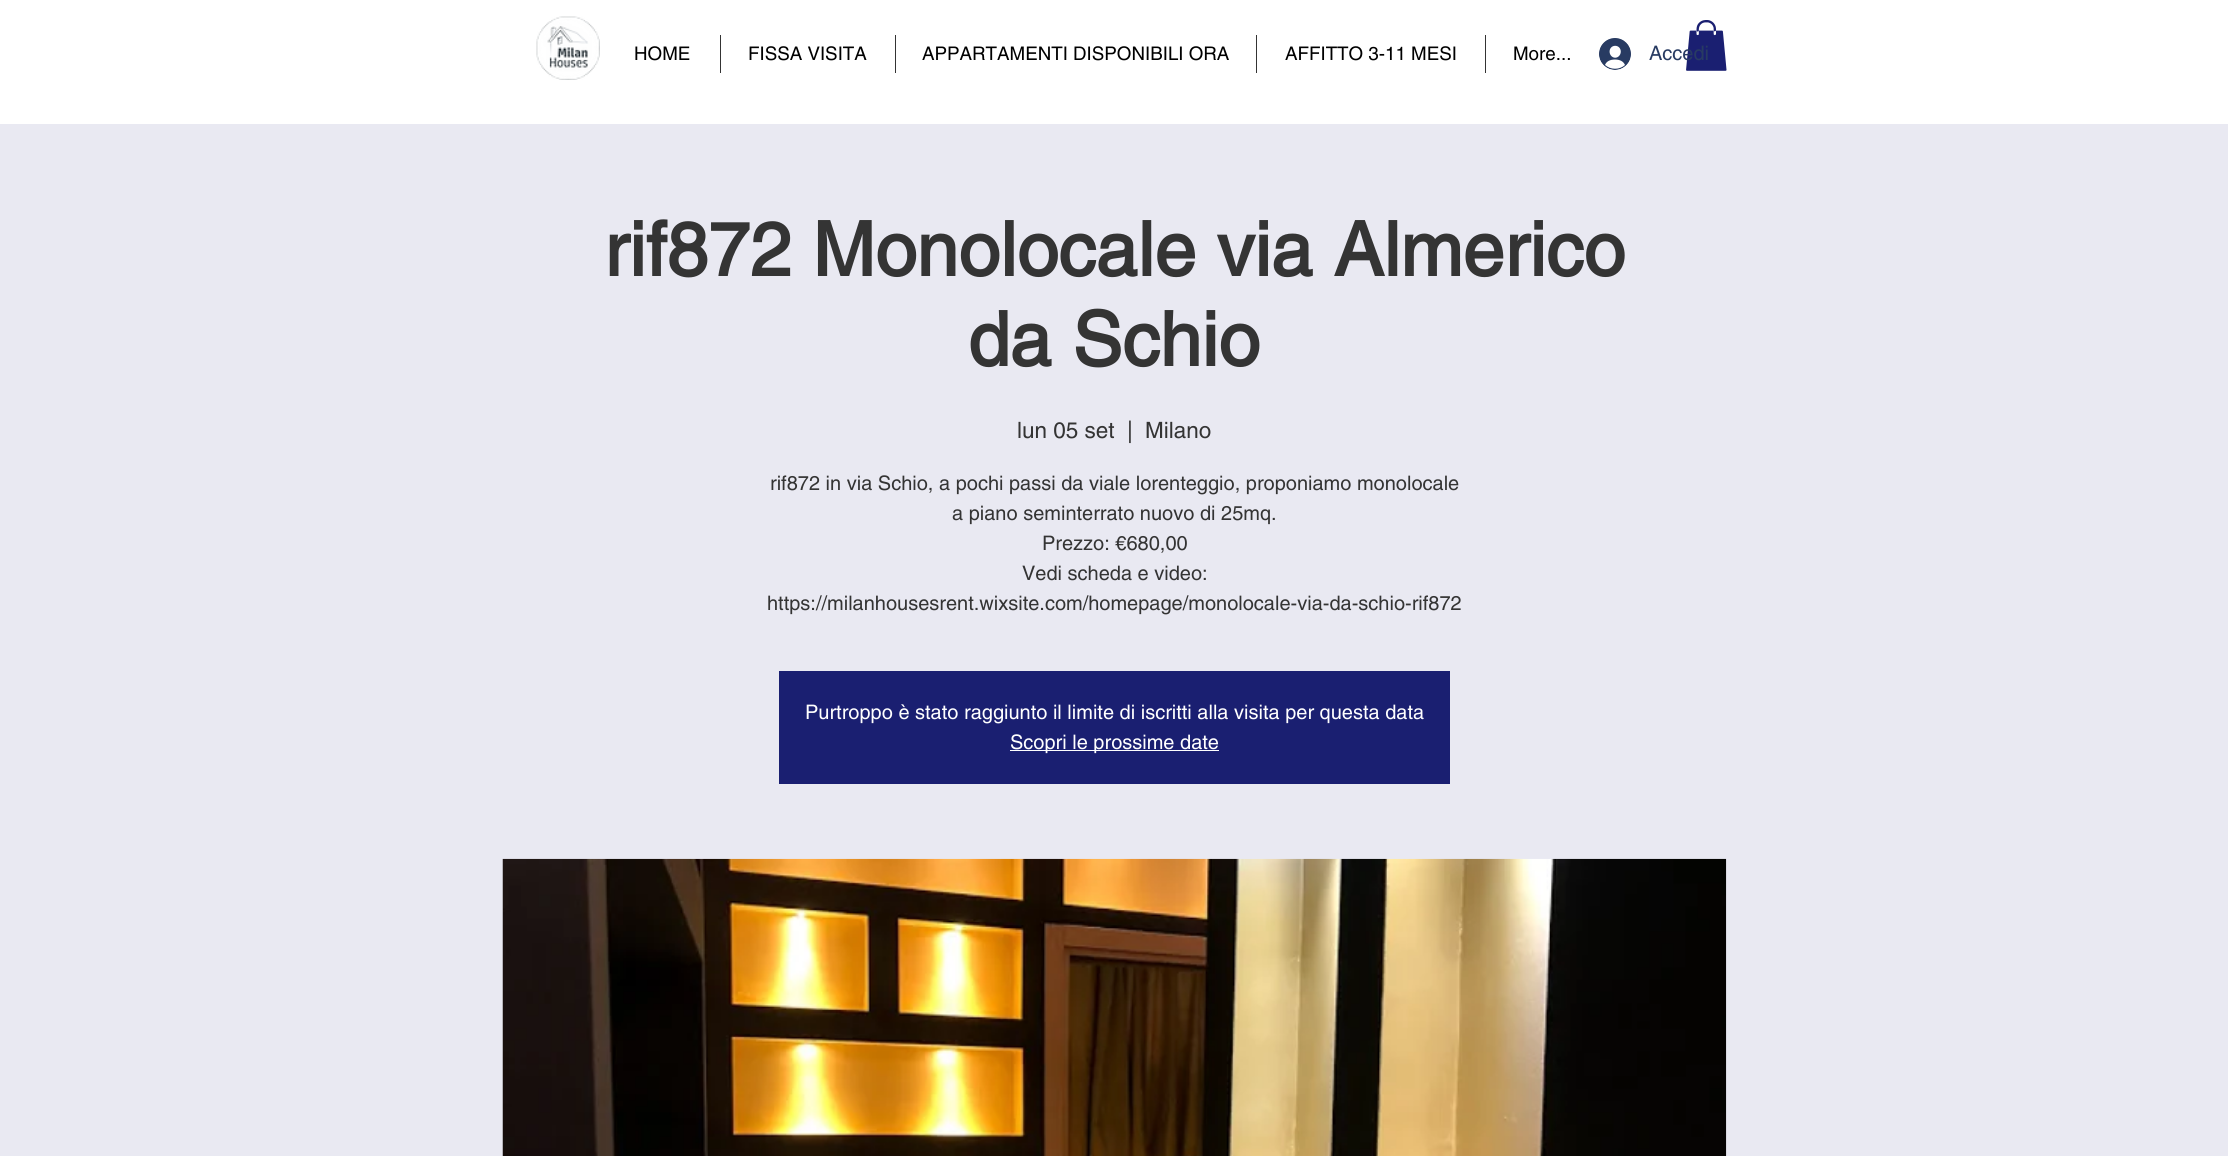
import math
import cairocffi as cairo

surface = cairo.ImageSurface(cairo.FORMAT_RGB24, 2228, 1156)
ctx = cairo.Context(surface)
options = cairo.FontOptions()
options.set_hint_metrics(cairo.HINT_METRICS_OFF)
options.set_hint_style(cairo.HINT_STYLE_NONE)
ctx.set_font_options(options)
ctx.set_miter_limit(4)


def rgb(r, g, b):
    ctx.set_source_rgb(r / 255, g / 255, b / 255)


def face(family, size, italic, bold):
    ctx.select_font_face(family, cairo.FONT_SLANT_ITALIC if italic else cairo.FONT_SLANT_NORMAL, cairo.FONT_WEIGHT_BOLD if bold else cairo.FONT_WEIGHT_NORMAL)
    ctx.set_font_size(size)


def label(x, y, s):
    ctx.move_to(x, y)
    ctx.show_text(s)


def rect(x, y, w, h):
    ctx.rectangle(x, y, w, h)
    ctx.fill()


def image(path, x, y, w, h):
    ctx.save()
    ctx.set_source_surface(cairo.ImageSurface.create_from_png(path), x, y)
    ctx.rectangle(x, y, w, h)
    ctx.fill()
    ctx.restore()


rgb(255, 255, 255)
ctx.paint()
image('image0.png', 536, 16, 64, 64)
image('image1.png', 1686, 20, 41, 51)
face('helvetica', 18.75, 0, 0)
rgb(0, 0, 0)
label(634, 60, 'HOME')
rgb(52, 52, 52)
rect(720, 35, 1, 38)
rgb(0, 0, 0)
label(748, 60, 'FISSA VISITA')
rgb(52, 52, 52)
rect(895, 35, 1, 38)
rgb(0, 0, 0)
label(922, 60, 'APPARTAMENTI DISPONIBILI ORA')
rgb(52, 52, 52)
rect(1256, 35, 1, 38)
rgb(0, 0, 0)
label(1285, 60, 'AFFITTO 3-11 MESI')
rgb(52, 52, 52)
rect(1485, 35, 1, 38)
rgb(0, 0, 0)
label(1513, 60, 'More...')
image('image2.png', 1599, 38, 32, 32)
face('helvetica', 20, 0, 0)
rgb(40, 59, 98)
label(1649, 60, 'Accedi')
rgb(233, 233, 242)
rect(0, 124, 2228, 1032)
face('helvetica', 75, 0, 1)
rgb(52, 52, 52)
label(604, 276, 'rif872 Monolocale via Almerico')
label(968, 366, 'da Schio')
face('helvetica', 22.5, 0, 0)
label(1017, 438, 'lun 05 set')
label(1127, 438, '|')
label(1145, 438, 'Milano')
face('helvetica', 20, 0, 0)
label(770, 490, 'rif872 in via Schio, a pochi passi da viale lorenteggio, proponiamo monolocale')
label(952, 520, 'a piano seminterrato nuovo di 25mq.')
label(1042, 550, 'Prezzo: €680,00')
label(1022, 580, 'Vedi scheda e video:')
label(767, 610, 'https://milanhousesrent.wixsite.com/homepage/monolocale-via-da-schio-rif872')
rgb(26, 31, 113)
rect(779, 671, 671, 113)
rgb(255, 255, 255)
label(805, 719, 'Purtroppo è stato raggiunto il limite di iscritti alla visita per questa data')
rect(1010, 750, 209, 1)
label(1010, 749, 'Scopri le prossime date')
image('image3.png', 502, 858, 1225, 298)
surface.write_to_png('render.png')
